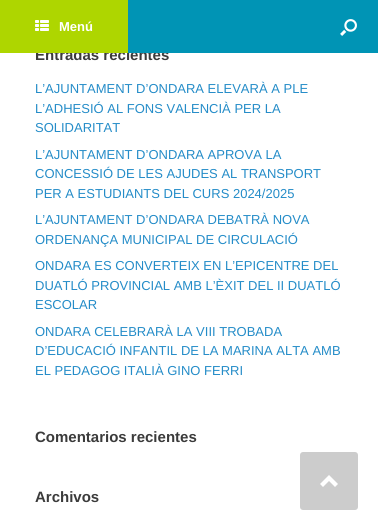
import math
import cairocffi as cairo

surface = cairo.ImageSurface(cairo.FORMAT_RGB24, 378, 530)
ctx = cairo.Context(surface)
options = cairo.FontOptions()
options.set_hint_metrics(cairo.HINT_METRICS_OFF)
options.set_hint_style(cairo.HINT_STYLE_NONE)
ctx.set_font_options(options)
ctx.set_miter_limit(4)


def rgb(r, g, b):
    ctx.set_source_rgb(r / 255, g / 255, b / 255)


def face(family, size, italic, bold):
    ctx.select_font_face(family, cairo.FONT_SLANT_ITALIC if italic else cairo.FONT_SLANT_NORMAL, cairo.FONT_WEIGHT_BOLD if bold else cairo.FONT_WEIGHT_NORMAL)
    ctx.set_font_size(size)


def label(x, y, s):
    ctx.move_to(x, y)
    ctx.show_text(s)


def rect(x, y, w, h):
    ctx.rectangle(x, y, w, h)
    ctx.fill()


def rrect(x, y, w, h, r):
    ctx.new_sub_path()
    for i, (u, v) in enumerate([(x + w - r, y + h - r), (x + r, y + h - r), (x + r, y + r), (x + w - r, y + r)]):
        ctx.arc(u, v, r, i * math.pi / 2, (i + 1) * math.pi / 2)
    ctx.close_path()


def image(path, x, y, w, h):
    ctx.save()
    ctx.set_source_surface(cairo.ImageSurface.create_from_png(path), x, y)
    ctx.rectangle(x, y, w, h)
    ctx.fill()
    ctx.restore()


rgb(255, 255, 255)
ctx.paint()
face('Liberation Sans', 15, 0, 1)
rgb(59, 59, 59)
label(35, 60, 'Entradas recientes')
rgb(0, 148, 181)
rect(128, 0, 250, 53)
rgb(174, 214, 0)
rect(0, 0, 128, 53)
image('image0.png', 35, 20, 14, 11)
face('Liberation Sans', 13, 0, 1)
rgb(255, 255, 255)
label(59, 31, 'Menú')
image('image1.png', 340, 19, 17, 17)
face('Liberation Sans', 13, 0, 0)
rgb(36, 140, 200)
label(35, 93, 'L’AJUNTAMENT D’ONDARA ELEVARÀ A PLE')
label(35, 113, 'L’ADHESIÓ AL FONS VALENCIÀ PER LA')
label(35, 132, 'SOLIDARITAT')
label(35, 159, 'L’AJUNTAMENT D’ONDARA APROVA LA')
label(35, 178, 'CONCESSIÓ DE LES AJUDES AL TRANSPORT')
label(35, 198, 'PER A ESTUDIANTS DEL CURS 2024/2025')
label(35, 224, 'L’AJUNTAMENT D’ONDARA DEBATRÀ NOVA')
label(35, 244, 'ORDENANÇA MUNICIPAL DE CIRCULACIÓ')
label(35, 270, 'ONDARA ES CONVERTEIX EN L’EPICENTRE DEL')
label(35, 290, 'DUATLÓ PROVINCIAL AMB L’ÈXIT DEL II DUATLÓ')
label(35, 309, 'ESCOLAR')
label(35, 336, 'ONDARA CELEBRARÀ LA VIII TROBADA')
label(35, 355, 'D’EDUCACIÓ INFANTIL DE LA MARINA ALTA AMB')
label(35, 375, 'EL PEDAGOG ITALIÀ GINO FERRI')
face('Liberation Sans', 15, 0, 1)
rgb(59, 59, 59)
label(35, 442, 'Comentarios recientes')
label(35, 502, 'Archivos')
rgb(204, 204, 204)
rrect(300, 452, 58, 58, 3)
ctx.fill()
rgb(255, 255, 255)
ctx.new_path()
ctx.move_to(338, 484)
ctx.line_to(329, 475)
ctx.line_to(320, 484)
ctx.line_to(323, 487)
ctx.line_to(329, 481)
ctx.line_to(335, 487)
ctx.close_path()
ctx.fill()
surface.write_to_png('render.png')
